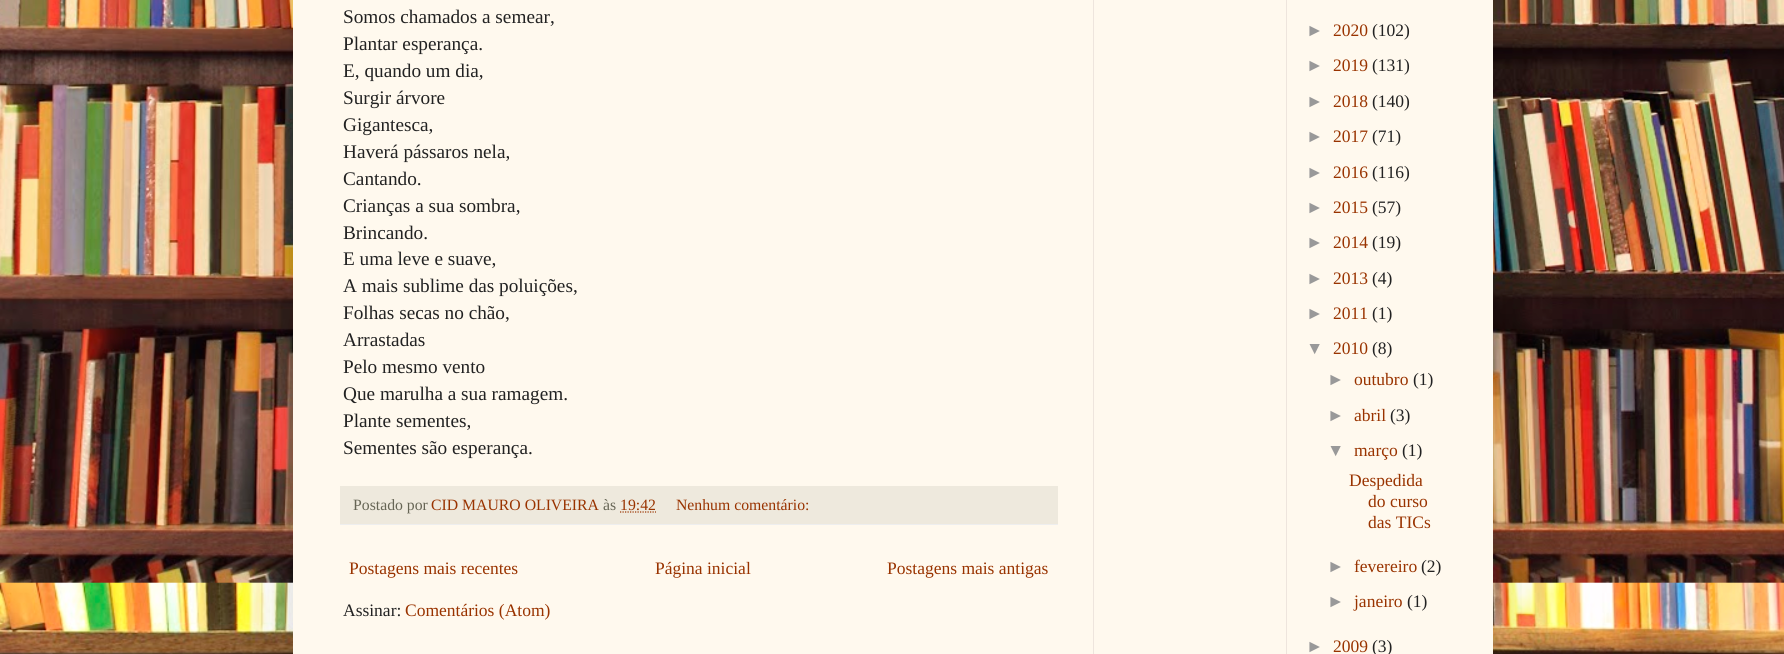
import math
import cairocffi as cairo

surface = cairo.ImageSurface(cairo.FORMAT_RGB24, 1784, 654)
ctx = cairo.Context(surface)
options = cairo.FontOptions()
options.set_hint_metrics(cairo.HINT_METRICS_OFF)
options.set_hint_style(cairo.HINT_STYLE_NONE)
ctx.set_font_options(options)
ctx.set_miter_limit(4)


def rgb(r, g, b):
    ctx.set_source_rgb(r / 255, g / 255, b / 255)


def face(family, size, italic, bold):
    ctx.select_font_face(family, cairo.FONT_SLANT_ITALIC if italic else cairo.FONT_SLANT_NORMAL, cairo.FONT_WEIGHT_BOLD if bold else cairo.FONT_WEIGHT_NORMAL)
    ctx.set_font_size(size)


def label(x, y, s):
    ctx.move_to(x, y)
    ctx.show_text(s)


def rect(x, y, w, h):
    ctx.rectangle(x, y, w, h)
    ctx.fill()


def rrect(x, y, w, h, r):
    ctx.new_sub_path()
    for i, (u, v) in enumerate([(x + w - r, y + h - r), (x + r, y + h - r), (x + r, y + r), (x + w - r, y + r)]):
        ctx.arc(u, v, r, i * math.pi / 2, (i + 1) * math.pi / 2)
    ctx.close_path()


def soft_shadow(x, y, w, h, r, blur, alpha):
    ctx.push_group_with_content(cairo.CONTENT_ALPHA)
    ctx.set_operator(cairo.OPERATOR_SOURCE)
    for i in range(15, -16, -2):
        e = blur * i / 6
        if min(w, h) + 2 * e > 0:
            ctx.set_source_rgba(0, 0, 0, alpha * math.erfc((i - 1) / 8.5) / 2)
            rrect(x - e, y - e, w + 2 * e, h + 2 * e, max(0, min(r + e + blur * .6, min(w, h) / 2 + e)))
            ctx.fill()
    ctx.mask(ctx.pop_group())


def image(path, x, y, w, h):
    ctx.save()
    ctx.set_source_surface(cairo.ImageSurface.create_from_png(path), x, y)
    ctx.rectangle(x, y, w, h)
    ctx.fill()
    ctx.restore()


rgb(255, 255, 255)
ctx.paint()
image('image0.png', 0, 0, 1784, 654)
rgb(0, 0, 0)
soft_shadow(293, -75, 1200, 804, 0, 25, 0.15)
rgb(255, 249, 238)
rect(293, 0, 1200, 654)
rgb(238, 229, 221)
rect(1093, 0, 1, 654)
face('Liberation Serif', 19.25, 0, 0)
rgb(34, 34, 34)
label(343, 23, 'Somos chamados a semear,')
label(343, 50, 'Plantar esperança.')
label(343, 77, 'E, quando um dia,')
label(343, 104, 'Surgir árvore')
label(343, 131, 'Gigantesca,')
label(343, 158, 'Haverá pássaros nela,')
label(343, 185, 'Cantando.')
label(343, 212, 'Crianças a sua sombra,')
label(343, 239, 'Brincando.')
label(343, 265, 'E uma leve e suave,')
label(343, 292, 'A mais sublime das poluições,')
label(343, 319, 'Folhas secas no chão,')
label(343, 346, 'Arrastadas')
label(343, 373, 'Pelo mesmo vento')
label(343, 400, 'Que marulha a sua ramagem.')
label(343, 427, 'Plante sementes,')
label(343, 454, 'Sementes são esperança.')
rgb(238, 233, 221)
rect(340, 486, 718, 38)
rgb(238, 238, 238)
rect(340, 524, 718, 1)
face('Liberation Serif', 15.75, 0, 0)
rgb(102, 101, 85)
label(353, 510, 'Postado por')
rgb(153, 51, 0)
label(431, 510, 'CID MAURO OLIVEIRA')
rgb(102, 101, 85)
label(603, 510, 'às')
rgb(153, 51, 0)
label(620, 510, '19:42')
ctx.new_path()
ctx.move_to(620, 512)
ctx.line_to(656, 512)
ctx.set_line_width(1.2)
ctx.set_dash([1.25, 1.25])
ctx.stroke()
label(676, 510, 'Nenhum comentário:')
face('Liberation Serif', 17.5, 0, 0)
label(349, 574, 'Postagens mais recentes')
label(655, 574, 'Página inicial')
label(887, 574, 'Postagens mais antigas')
rgb(34, 34, 34)
label(343, 616, 'Assinar:')
rgb(153, 51, 0)
label(405, 616, 'Comentários (Atom)')
rgb(238, 229, 221)
rect(1286, 0, 1, 654)
face('Liberation Sans', 17.5, 0, 0)
rgb(153, 153, 153)
label(1306, 36, '►')
face('Liberation Serif', 17.5, 0, 0)
rgb(153, 51, 0)
label(1333, 36, '2020')
rgb(34, 34, 34)
label(1372, 36, '(102)')
face('Liberation Sans', 17.5, 0, 0)
rgb(153, 153, 153)
label(1306, 71, '►')
face('Liberation Serif', 17.5, 0, 0)
rgb(153, 51, 0)
label(1333, 71, '2019')
rgb(34, 34, 34)
label(1372, 71, '(131)')
face('Liberation Sans', 17.5, 0, 0)
rgb(153, 153, 153)
label(1306, 107, '►')
face('Liberation Serif', 17.5, 0, 0)
rgb(153, 51, 0)
label(1333, 107, '2018')
rgb(34, 34, 34)
label(1372, 107, '(140)')
face('Liberation Sans', 17.5, 0, 0)
rgb(153, 153, 153)
label(1306, 142, '►')
face('Liberation Serif', 17.5, 0, 0)
rgb(153, 51, 0)
label(1333, 142, '2017')
rgb(34, 34, 34)
label(1372, 142, '(71)')
face('Liberation Sans', 17.5, 0, 0)
rgb(153, 153, 153)
label(1306, 178, '►')
face('Liberation Serif', 17.5, 0, 0)
rgb(153, 51, 0)
label(1333, 178, '2016')
rgb(34, 34, 34)
label(1372, 178, '(116)')
face('Liberation Sans', 17.5, 0, 0)
rgb(153, 153, 153)
label(1306, 213, '►')
face('Liberation Serif', 17.5, 0, 0)
rgb(153, 51, 0)
label(1333, 213, '2015')
rgb(34, 34, 34)
label(1372, 213, '(57)')
face('Liberation Sans', 17.5, 0, 0)
rgb(153, 153, 153)
label(1306, 248, '►')
face('Liberation Serif', 17.5, 0, 0)
rgb(153, 51, 0)
label(1333, 248, '2014')
rgb(34, 34, 34)
label(1372, 248, '(19)')
face('Liberation Sans', 17.5, 0, 0)
rgb(153, 153, 153)
label(1306, 284, '►')
face('Liberation Serif', 17.5, 0, 0)
rgb(153, 51, 0)
label(1333, 284, '2013')
rgb(34, 34, 34)
label(1372, 284, '(4)')
face('Liberation Sans', 17.5, 0, 0)
rgb(153, 153, 153)
label(1306, 319, '►')
face('Liberation Serif', 17.5, 0, 0)
rgb(153, 51, 0)
label(1333, 319, '2011')
rgb(34, 34, 34)
label(1372, 319, '(1)')
face('Liberation Sans', 17.5, 0, 0)
rgb(153, 153, 153)
label(1306, 354, '▼')
face('Liberation Serif', 17.5, 0, 0)
rgb(153, 51, 0)
label(1333, 354, '2010')
rgb(34, 34, 34)
label(1372, 354, '(8)')
face('Liberation Sans', 17.5, 0, 0)
rgb(153, 153, 153)
label(1327, 385, '►')
face('Liberation Serif', 17.5, 0, 0)
rgb(153, 51, 0)
label(1354, 385, 'outubro')
rgb(34, 34, 34)
label(1413, 385, '(1)')
face('Liberation Sans', 17.5, 0, 0)
rgb(153, 153, 153)
label(1327, 421, '►')
face('Liberation Serif', 17.5, 0, 0)
rgb(153, 51, 0)
label(1354, 421, 'abril')
rgb(34, 34, 34)
label(1390, 421, '(3)')
face('Liberation Sans', 17.5, 0, 0)
rgb(153, 153, 153)
label(1327, 456, '▼')
face('Liberation Serif', 17.5, 0, 0)
rgb(153, 51, 0)
label(1354, 456, 'março')
rgb(34, 34, 34)
label(1402, 456, '(1)')
rgb(153, 51, 0)
label(1349, 486, 'Despedida')
label(1368, 507, 'do curso')
label(1368, 528, 'das TICs')
face('Liberation Sans', 17.5, 0, 0)
rgb(153, 153, 153)
label(1327, 572, '►')
face('Liberation Serif', 17.5, 0, 0)
rgb(153, 51, 0)
label(1354, 572, 'fevereiro')
rgb(34, 34, 34)
label(1421, 572, '(2)')
face('Liberation Sans', 17.5, 0, 0)
rgb(153, 153, 153)
label(1327, 607, '►')
face('Liberation Serif', 17.5, 0, 0)
rgb(153, 51, 0)
label(1354, 607, 'janeiro')
rgb(34, 34, 34)
label(1407, 607, '(1)')
face('Liberation Sans', 17.5, 0, 0)
rgb(153, 153, 153)
label(1306, 652, '►')
face('Liberation Serif', 17.5, 0, 0)
rgb(153, 51, 0)
label(1333, 652, '2009')
rgb(34, 34, 34)
label(1372, 652, '(3)')
surface.write_to_png('render.png')
